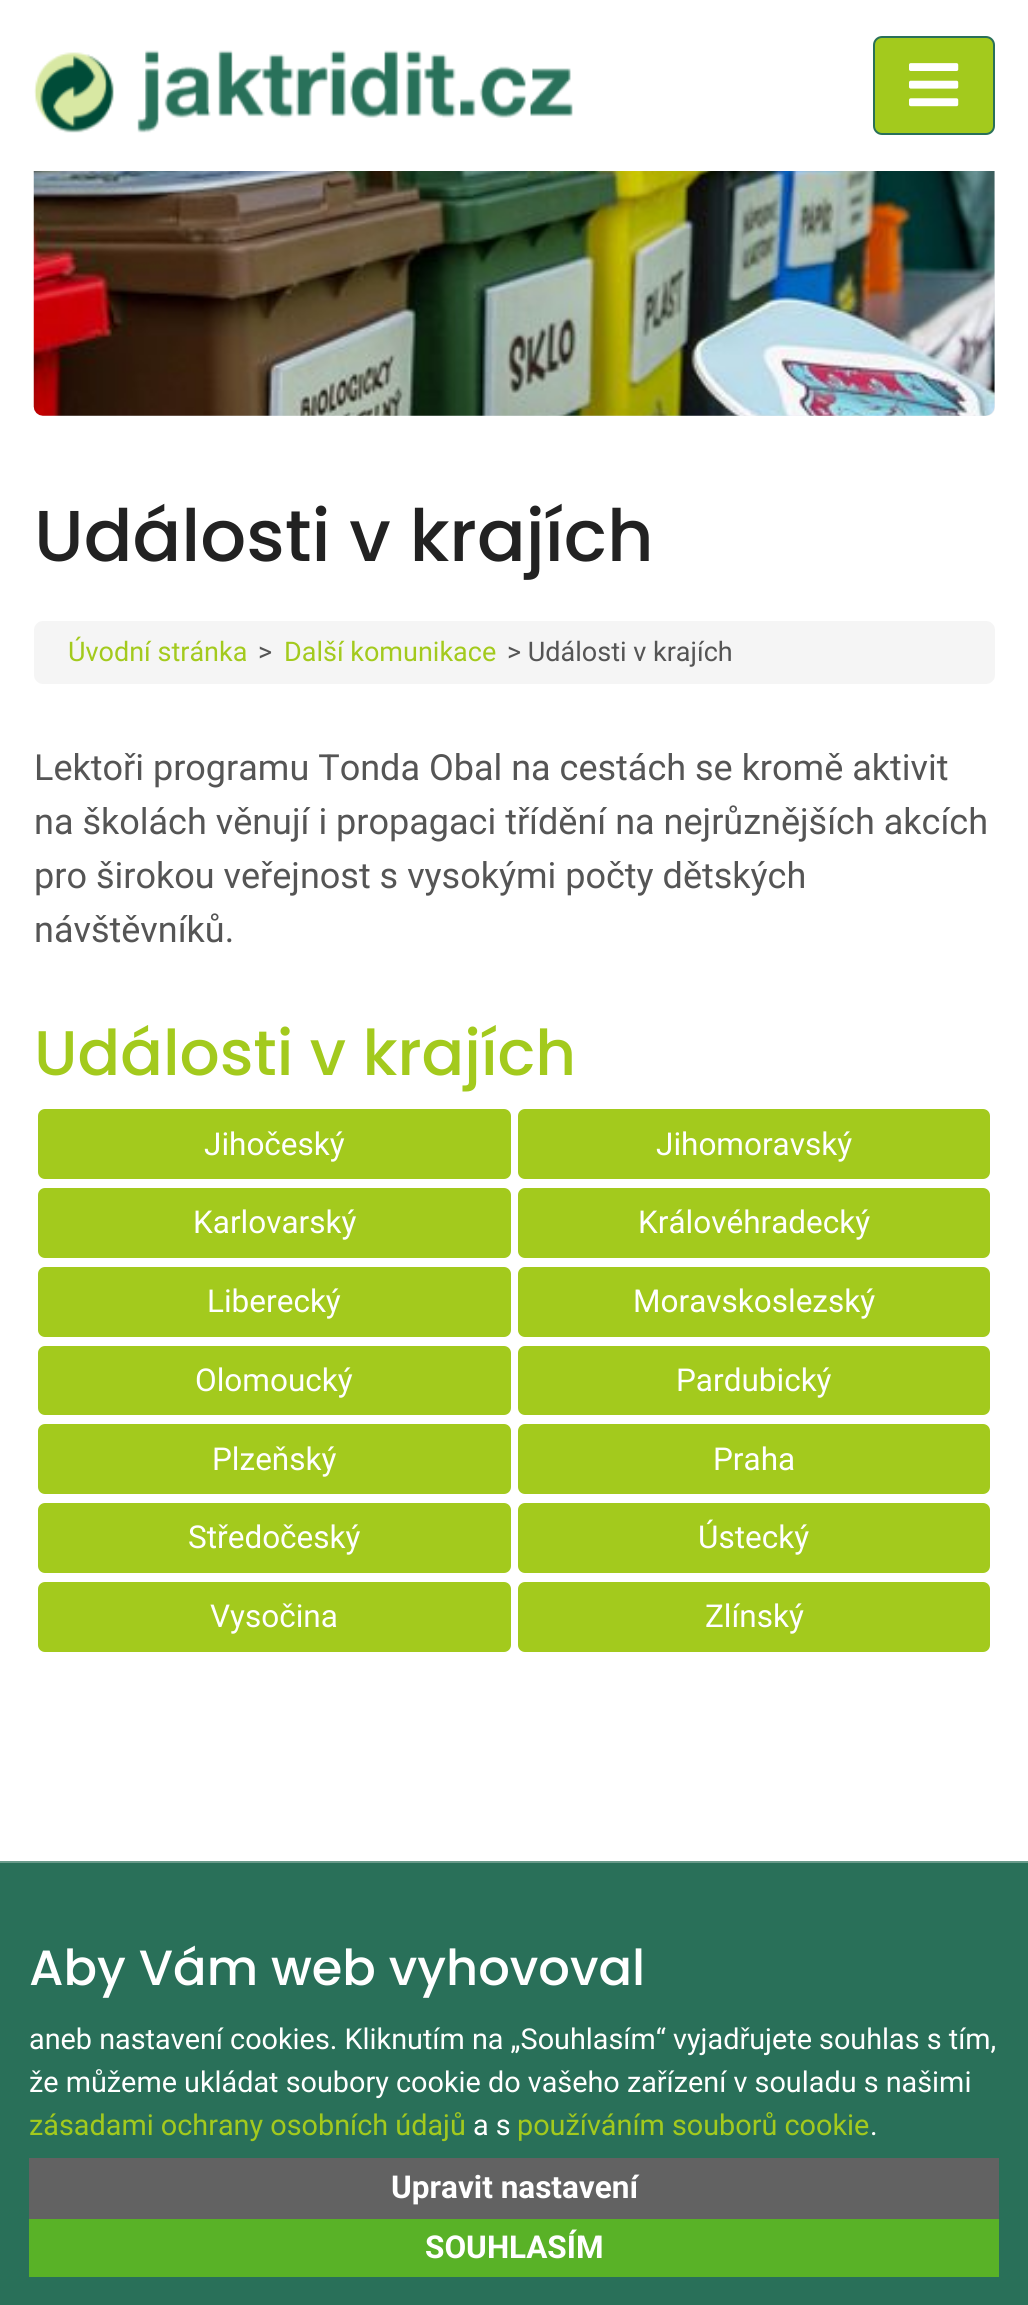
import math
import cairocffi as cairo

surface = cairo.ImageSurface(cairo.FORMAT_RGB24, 1028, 2305)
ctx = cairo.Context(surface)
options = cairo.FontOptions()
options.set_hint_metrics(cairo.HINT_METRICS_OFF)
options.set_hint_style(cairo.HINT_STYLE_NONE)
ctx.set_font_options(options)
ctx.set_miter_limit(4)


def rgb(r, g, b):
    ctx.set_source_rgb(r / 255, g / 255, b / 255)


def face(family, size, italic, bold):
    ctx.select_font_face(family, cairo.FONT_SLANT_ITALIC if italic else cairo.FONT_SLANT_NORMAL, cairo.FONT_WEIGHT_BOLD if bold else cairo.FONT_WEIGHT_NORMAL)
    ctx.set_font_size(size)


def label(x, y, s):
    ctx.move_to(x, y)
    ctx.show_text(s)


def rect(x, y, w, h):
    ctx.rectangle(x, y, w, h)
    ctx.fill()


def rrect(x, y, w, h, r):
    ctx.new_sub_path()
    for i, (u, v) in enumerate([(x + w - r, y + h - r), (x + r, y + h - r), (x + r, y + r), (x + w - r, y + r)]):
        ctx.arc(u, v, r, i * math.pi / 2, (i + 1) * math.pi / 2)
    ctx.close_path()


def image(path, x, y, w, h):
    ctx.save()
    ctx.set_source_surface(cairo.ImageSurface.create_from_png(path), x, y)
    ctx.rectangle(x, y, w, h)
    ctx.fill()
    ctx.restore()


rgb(255, 255, 255)
ctx.paint()
rgb(233, 236, 239)
rrect(34, 54, 961, 362, 9)
ctx.fill()
rgb(255, 255, 255)
rect(34, 54, 961, 117)
image('image0.png', 34, 50, 539, 83)
rgb(163, 202, 29)
rrect(874, 37, 120, 97, 8)
ctx.fill_preserve()
rgb(41, 112, 89)
ctx.stroke()
image('image1.png', 909, 63, 50, 44)
image('image2.png', 33, 171, 962, 245)
face('Poppins Medium', 72, 0, 0)
rgb(34, 34, 34)
label(34, 561, 'Události v krajích')
rgb(245, 245, 245)
rrect(34, 621, 961, 63, 9)
ctx.fill()
face('Roboto', 27, 0, 0)
rgb(163, 202, 29)
label(68, 661, 'Úvodní stránka')
rgb(85, 85, 85)
label(258, 661, '>')
rgb(163, 202, 29)
label(284, 661, 'Další komunikace')
rgb(85, 85, 85)
label(507, 661, '> Události v krajích')
face('Roboto', 36, 0, 0)
label(34, 780, 'Lektoři programu Tonda Obal na cestách se kromě aktivit')
label(34, 834, 'na školách věnují i propagaci třídění na nejrůznějších akcích')
label(34, 888, 'pro širokou veřejnost s vysokými počty dětských')
label(34, 942, 'návštěvníků.')
face('Poppins Medium', 63, 0, 0)
rgb(163, 202, 29)
label(34, 1075, 'Události v krajích')
rrect(39, 1110, 471, 68, 6)
ctx.fill_preserve()
ctx.stroke()
face('Roboto', 31.5, 0, 0)
rgb(255, 255, 255)
label(204, 1155, 'Jihočeský')
rgb(163, 202, 29)
rrect(519, 1110, 470, 68, 6)
ctx.fill_preserve()
ctx.stroke()
rgb(255, 255, 255)
label(656, 1155, 'Jihomoravský')
rgb(163, 202, 29)
rrect(39, 1189, 471, 68, 6)
ctx.fill_preserve()
ctx.stroke()
rgb(255, 255, 255)
label(193, 1233, 'Karlovarský')
rgb(163, 202, 29)
rrect(519, 1189, 470, 68, 6)
ctx.fill_preserve()
ctx.stroke()
rgb(255, 255, 255)
label(638, 1233, 'Královéhradecký')
rgb(163, 202, 29)
rrect(39, 1268, 471, 68, 6)
ctx.fill_preserve()
ctx.stroke()
rgb(255, 255, 255)
label(207, 1312, 'Liberecký')
rgb(163, 202, 29)
rrect(519, 1268, 470, 68, 6)
ctx.fill_preserve()
ctx.stroke()
rgb(255, 255, 255)
label(633, 1312, 'Moravskoslezský')
rgb(163, 202, 29)
rrect(39, 1347, 471, 67, 6)
ctx.fill_preserve()
ctx.stroke()
rgb(255, 255, 255)
label(195, 1391, 'Olomoucký')
rgb(163, 202, 29)
rrect(519, 1347, 470, 67, 6)
ctx.fill_preserve()
ctx.stroke()
rgb(255, 255, 255)
label(676, 1391, 'Pardubický')
rgb(163, 202, 29)
rrect(39, 1425, 471, 68, 6)
ctx.fill_preserve()
ctx.stroke()
rgb(255, 255, 255)
label(212, 1470, 'Plzeňský')
rgb(163, 202, 29)
rrect(519, 1425, 470, 68, 6)
ctx.fill_preserve()
ctx.stroke()
rgb(255, 255, 255)
label(713, 1470, 'Praha')
rgb(163, 202, 29)
rrect(39, 1504, 471, 68, 6)
ctx.fill_preserve()
ctx.stroke()
rgb(255, 255, 255)
label(188, 1548, 'Středočeský')
rgb(163, 202, 29)
rrect(519, 1504, 470, 68, 6)
ctx.fill_preserve()
ctx.stroke()
rgb(255, 255, 255)
label(698, 1548, 'Ústecký')
rgb(163, 202, 29)
rrect(39, 1583, 471, 68, 6)
ctx.fill_preserve()
ctx.stroke()
rgb(255, 255, 255)
label(210, 1627, 'Vysočina')
rgb(163, 202, 29)
rrect(519, 1583, 470, 68, 6)
ctx.fill_preserve()
ctx.stroke()
rgb(255, 255, 255)
label(705, 1627, 'Zlínský')
rgb(41, 112, 89)
rect(0, 1863, 1028, 442)
rgb(105, 155, 139)
rect(0, 1861, 1028, 2)
face('Poppins Medium', 49.5, 0, 0)
rgb(255, 255, 255)
label(29, 1985, 'Aby Vám web vyhovoval')
face('Roboto', 28.8, 0, 0)
label(29, 2049, 'aneb nastavení cookies. Kliknutím na „Souhlasím“ vyjadřujete souhlas s tím,')
label(29, 2092, 'že můžeme ukládat soubory cookie do vašeho zařízení v souladu s našimi')
rgb(163, 202, 29)
label(29, 2135, 'zásadami ochrany osobních údajů')
rgb(255, 255, 255)
label(473, 2135, 'a s')
rgb(163, 202, 29)
label(517, 2135, 'používáním souborů cookie')
rgb(255, 255, 255)
label(870, 2135, '.')
rgb(98, 98, 98)
rect(29, 2158, 970, 61)
face('Roboto', 31.5, 0, 1)
rgb(255, 255, 255)
label(391, 2198, 'Upravit nastavení')
rgb(89, 178, 39)
rect(29, 2219, 970, 58)
rgb(255, 255, 255)
label(425, 2258, 'SOUHLASÍM')
surface.write_to_png('render.png')
